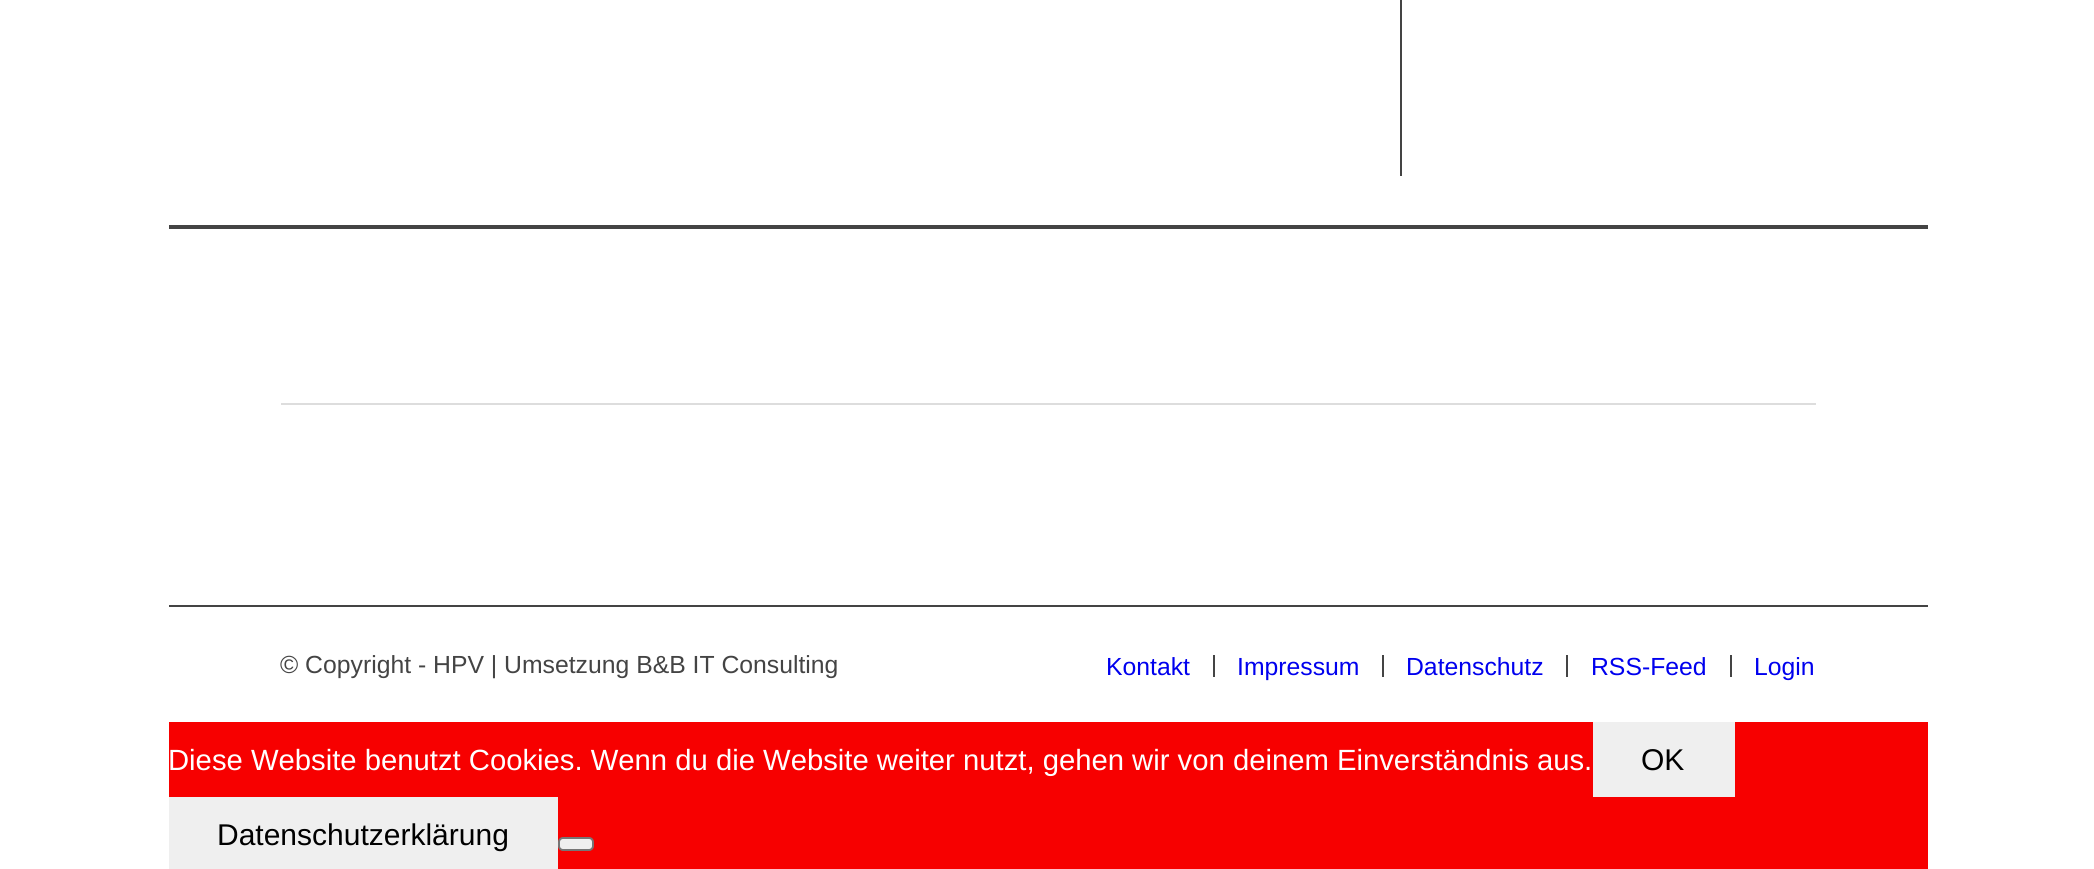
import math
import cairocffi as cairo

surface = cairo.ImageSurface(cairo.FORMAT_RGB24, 2094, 869)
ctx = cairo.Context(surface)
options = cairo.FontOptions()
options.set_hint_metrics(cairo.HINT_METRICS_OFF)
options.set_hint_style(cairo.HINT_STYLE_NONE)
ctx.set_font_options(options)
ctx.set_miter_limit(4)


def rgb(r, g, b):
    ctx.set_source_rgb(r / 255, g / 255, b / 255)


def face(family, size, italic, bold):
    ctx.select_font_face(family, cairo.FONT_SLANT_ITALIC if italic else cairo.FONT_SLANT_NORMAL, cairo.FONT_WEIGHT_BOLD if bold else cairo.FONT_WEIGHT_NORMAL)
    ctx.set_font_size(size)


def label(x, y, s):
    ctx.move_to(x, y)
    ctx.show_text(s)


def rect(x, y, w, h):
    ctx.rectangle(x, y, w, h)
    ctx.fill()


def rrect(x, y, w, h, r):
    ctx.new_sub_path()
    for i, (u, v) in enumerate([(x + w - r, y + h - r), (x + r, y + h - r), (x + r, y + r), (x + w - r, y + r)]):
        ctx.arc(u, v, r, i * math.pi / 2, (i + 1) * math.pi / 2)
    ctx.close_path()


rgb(255, 255, 255)
ctx.paint()
rgb(68, 68, 68)
rect(1400, 0, 2, 176)
rect(169, 225, 1759, 4)
rgb(221, 221, 221)
rect(281, 403, 1535, 2)
rgb(68, 68, 68)
rect(169, 605, 1759, 2)
face('Liberation Sans', 24.75, 0, 0)
label(280, 673, '© Copyright - HPV | Umsetzung B&B IT Consulting')
rgb(0, 0, 238)
label(1106, 675, 'Kontakt')
rgb(68, 68, 68)
rect(1213, 655, 2, 22)
rgb(0, 0, 238)
label(1237, 675, 'Impressum')
rgb(68, 68, 68)
rect(1382, 655, 2, 22)
rgb(0, 0, 238)
label(1406, 675, 'Datenschutz')
rgb(68, 68, 68)
rect(1566, 655, 2, 22)
rgb(0, 0, 238)
label(1591, 675, 'RSS-Feed')
rgb(68, 68, 68)
rect(1730, 655, 2, 22)
rgb(0, 0, 238)
label(1754, 675, 'Login')
rgb(247, 0, 0)
rect(169, 722, 1759, 147)
face('Liberation Sans', 29.25, 0, 0)
rgb(255, 255, 255)
label(168, 770, 'Diese Website benutzt Cookies. Wenn du die Website weiter nutzt, gehen wir von deinem Einverständnis aus.')
rgb(239, 239, 239)
rect(1593, 722, 142, 75)
face('Liberation Sans', 30, 0, 0)
rgb(0, 0, 0)
label(1641, 770, 'OK')
rgb(239, 239, 239)
rect(169, 797, 389, 72)
rgb(0, 0, 0)
label(217, 845, 'Datenschutzerklärung')
rgb(239, 239, 239)
rrect(559, 838, 34, 12, 4)
ctx.fill_preserve()
rgb(118, 118, 118)
ctx.stroke()
surface.write_to_png('render.png')
